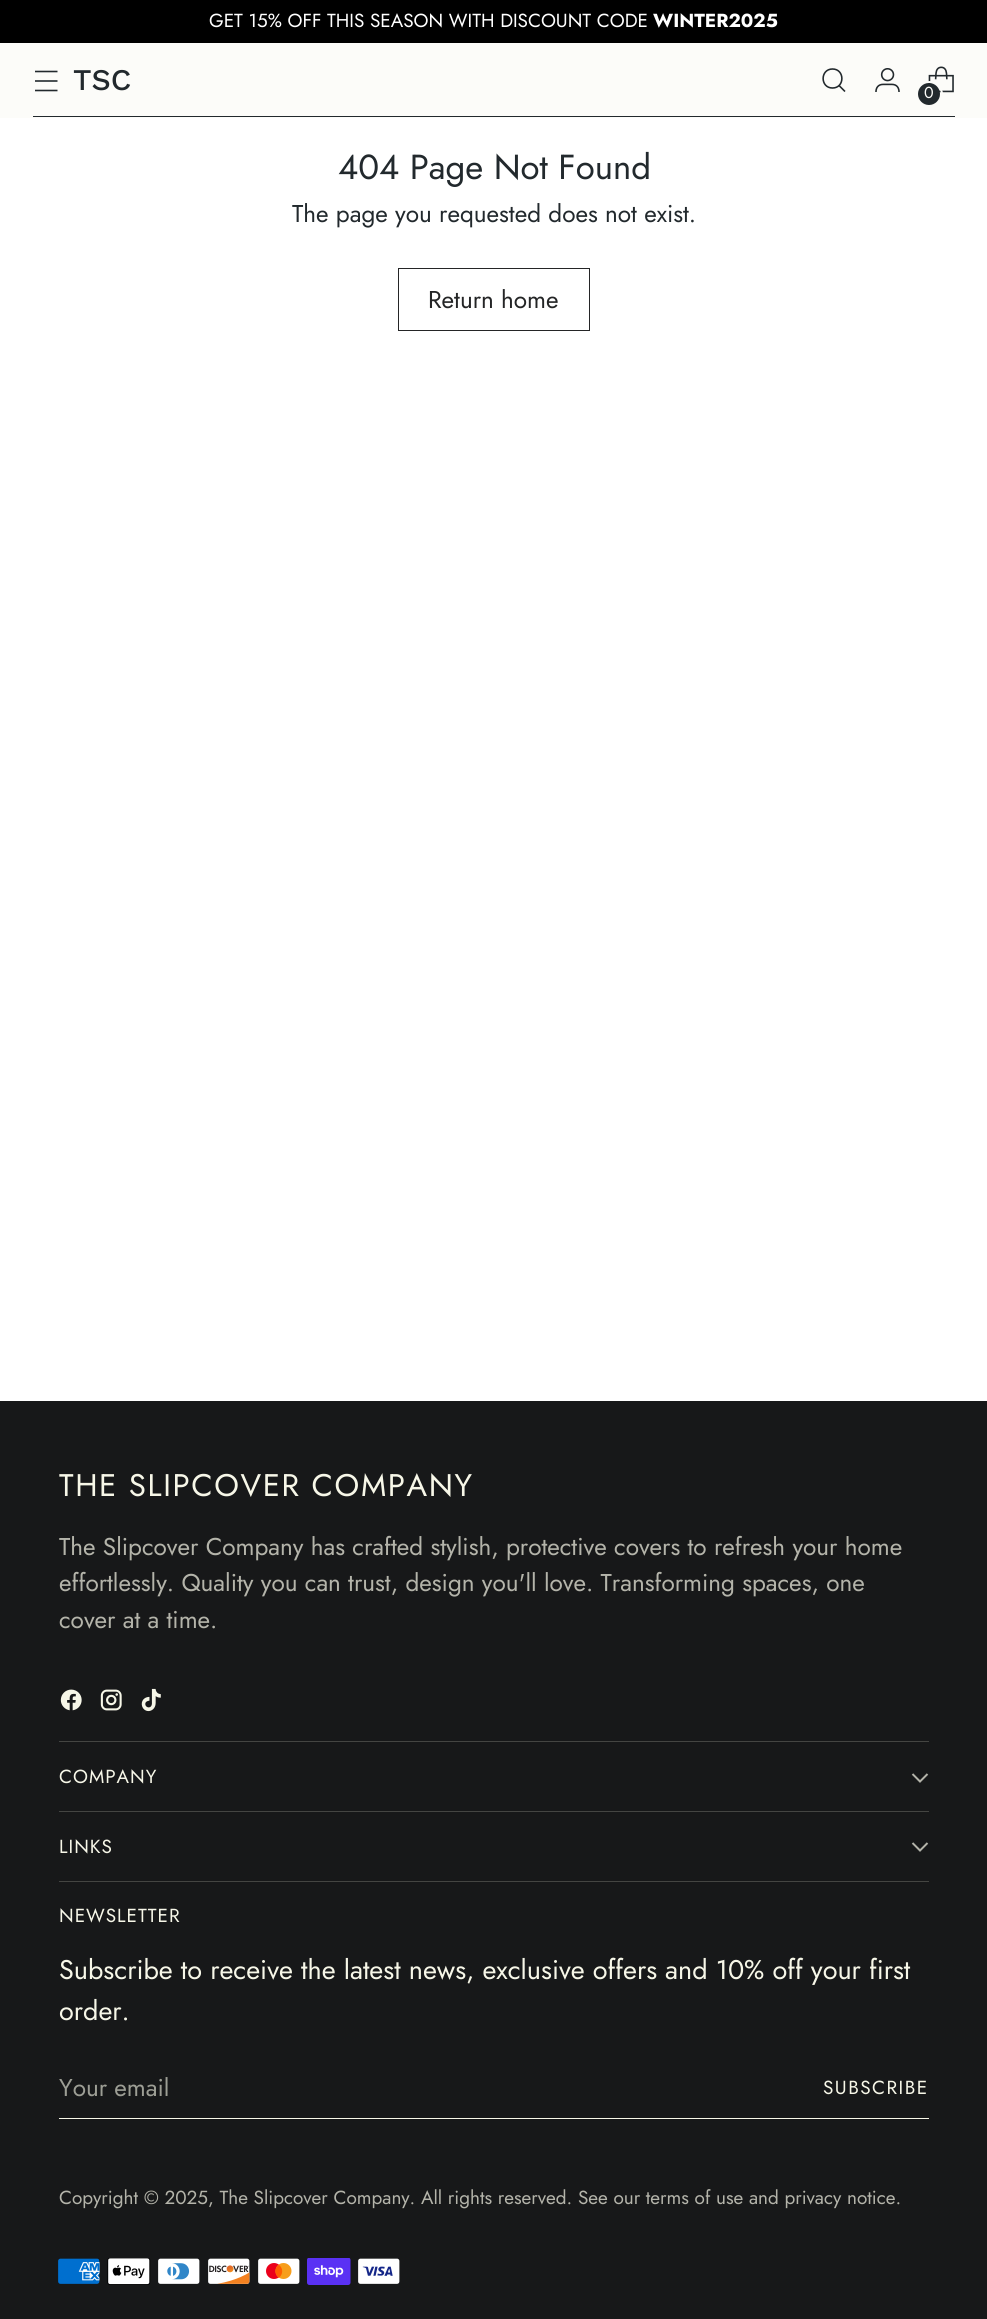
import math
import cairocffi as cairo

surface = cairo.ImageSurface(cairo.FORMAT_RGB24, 987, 2319)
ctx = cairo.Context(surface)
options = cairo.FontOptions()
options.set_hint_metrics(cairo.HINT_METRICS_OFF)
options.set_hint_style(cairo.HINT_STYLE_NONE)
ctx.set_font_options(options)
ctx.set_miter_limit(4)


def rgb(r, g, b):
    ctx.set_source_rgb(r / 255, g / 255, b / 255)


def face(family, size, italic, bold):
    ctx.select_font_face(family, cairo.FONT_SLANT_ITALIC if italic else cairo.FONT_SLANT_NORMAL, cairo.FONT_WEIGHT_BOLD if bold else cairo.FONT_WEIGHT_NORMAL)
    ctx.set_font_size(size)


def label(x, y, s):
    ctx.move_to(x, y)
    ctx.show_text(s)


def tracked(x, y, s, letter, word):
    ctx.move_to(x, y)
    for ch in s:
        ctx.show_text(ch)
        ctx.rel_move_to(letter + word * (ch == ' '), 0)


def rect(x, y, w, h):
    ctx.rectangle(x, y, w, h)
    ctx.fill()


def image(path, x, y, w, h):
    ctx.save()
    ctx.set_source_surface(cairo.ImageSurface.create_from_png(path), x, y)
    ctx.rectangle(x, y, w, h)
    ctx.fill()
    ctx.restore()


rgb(255, 255, 255)
ctx.paint()
rgb(0, 0, 0)
rect(0, 0, 987, 43)
face('Jost', 18.9, 0, 0)
rgb(255, 255, 255)
label(209, 27, 'GET 15% OFF THIS SEASON WITH DISCOUNT CODE')
face('Jost', 18.9, 0, 1)
label(653, 27, 'WINTER2025')
rgb(252, 252, 249)
rect(0, 43, 987, 75)
rgb(34, 41, 45)
rect(33, 116, 922, 1)
ctx.new_path()
ctx.move_to(35, 81)
ctx.line_to(57.5, 81)
ctx.move_to(35, 71.5)
ctx.line_to(57.5, 71.5)
ctx.move_to(35, 90.5)
ctx.line_to(57.5, 90.5)
ctx.set_line_width(1.6)
ctx.stroke()
face('Work Sans Medium', 30, 0, 0)
label(73, 90, 'TSC')
ctx.new_path()
ctx.move_to(832.5, 88)
ctx.curve_to(845, 88, 845, 69, 832.5, 69)
ctx.curve_to(820, 69, 820, 88, 832.5, 88)
ctx.close_path()
ctx.set_line_cap(cairo.LINE_CAP_ROUND)
ctx.stroke()
ctx.new_path()
ctx.move_to(839, 85.5)
ctx.line_to(845, 91.5)
ctx.set_line_cap(cairo.LINE_CAP_BUTT)
ctx.stroke()
image('image0.png', 875, 68, 25, 24)
image('image1.png', 928, 66, 26, 27)
ctx.arc(929.5, 94.5, 12.5, 0, 2 * math.pi)
rgb(252, 252, 249)
ctx.set_line_width(2)
ctx.stroke()
rgb(34, 41, 45)
ctx.arc(929, 94, 11, 0, 2 * math.pi)
ctx.fill()
face('Jost', 16, 0, 0)
rgb(252, 252, 249)
label(924, 98, '0')
face('Jost', 34.75, 0, 0)
rgb(34, 41, 45)
label(338, 179, '404 Page Not Found')
face('Jost', 24.3, 0, 0)
label(292, 222, 'The page you requested does not exist.')
ctx.rectangle(398.5, 268.5, 191, 62)
rgb(36, 37, 38)
ctx.set_line_width(1)
ctx.stroke()
label(428, 308, 'Return home')
rgb(23, 24, 25)
rect(0, 1401, 987, 918)
rgb(68, 69, 66)
rect(59, 1741, 870, 1)
face('Jost', 31.25, 0, 0)
rgb(247, 247, 232)
tracked(59, 1496, 'THE SLIPCOVER COMPANY', 1.6, 0)
face('Jost', 24.3, 0, 0)
rgb(180, 180, 170)
label(59, 1555, 'The Slipcover Company has crafted stylish, protective covers to refresh your home')
label(59, 1591, 'effortlessly. Quality you can trust, design you\'ll love. Transforming spaces, one')
label(59, 1628, 'cover at a time.')
image('image2.png', 60, 1689, 22, 22)
image('image3.png', 100, 1689, 22, 22)
image('image4.png', 141, 1688, 20, 24)
rgb(68, 69, 66)
rect(59, 1811, 870, 1)
face('Jost', 18.9, 0, 0)
rgb(247, 247, 232)
tracked(59, 1783, 'COMPANY', 1, 0)
ctx.new_path()
ctx.move_to(912.5, 1774)
ctx.line_to(920, 1781.5)
ctx.line_to(927.5, 1774)
rgb(180, 180, 170)
ctx.set_line_width(2)
ctx.stroke()
rgb(68, 69, 66)
rect(59, 1881, 870, 1)
rgb(247, 247, 232)
tracked(59, 1853, 'LINKS', 1, 0)
ctx.new_path()
ctx.move_to(912.5, 1843)
ctx.line_to(920, 1850.5)
ctx.line_to(927.5, 1843)
rgb(180, 180, 170)
ctx.stroke()
rgb(247, 247, 232)
tracked(59, 1922, 'NEWSLETTER', 1, 0)
face('Jost', 27, 0, 0)
label(59, 1979, 'Subscribe to receive the latest news, exclusive offers and 10% off your first')
label(59, 2020, 'order.')
rect(59, 2118, 870, 1)
face('Jost', 24.3, 0, 0)
rgb(157, 158, 149)
label(59, 2096, 'Your email')
face('Jost', 18.9, 0, 0)
rgb(247, 247, 232)
tracked(823, 2094, 'SUBSCRIBE', 1.5, 0)
rgb(180, 180, 170)
label(59, 2204, 'Copyright © 2025, The Slipcover Company. All rights reserved. See our terms of use and privacy notice.')
image('image5.png', 58, 2258, 42, 26)
image('image6.png', 107, 2258, 44, 27)
image('image7.png', 158, 2258, 42, 26)
image('image8.png', 208, 2258, 42, 26)
image('image9.png', 258, 2258, 42, 26)
image('image10.png', 307, 2258, 44, 27)
image('image11.png', 358, 2258, 42, 26)
surface.write_to_png('render.png')
